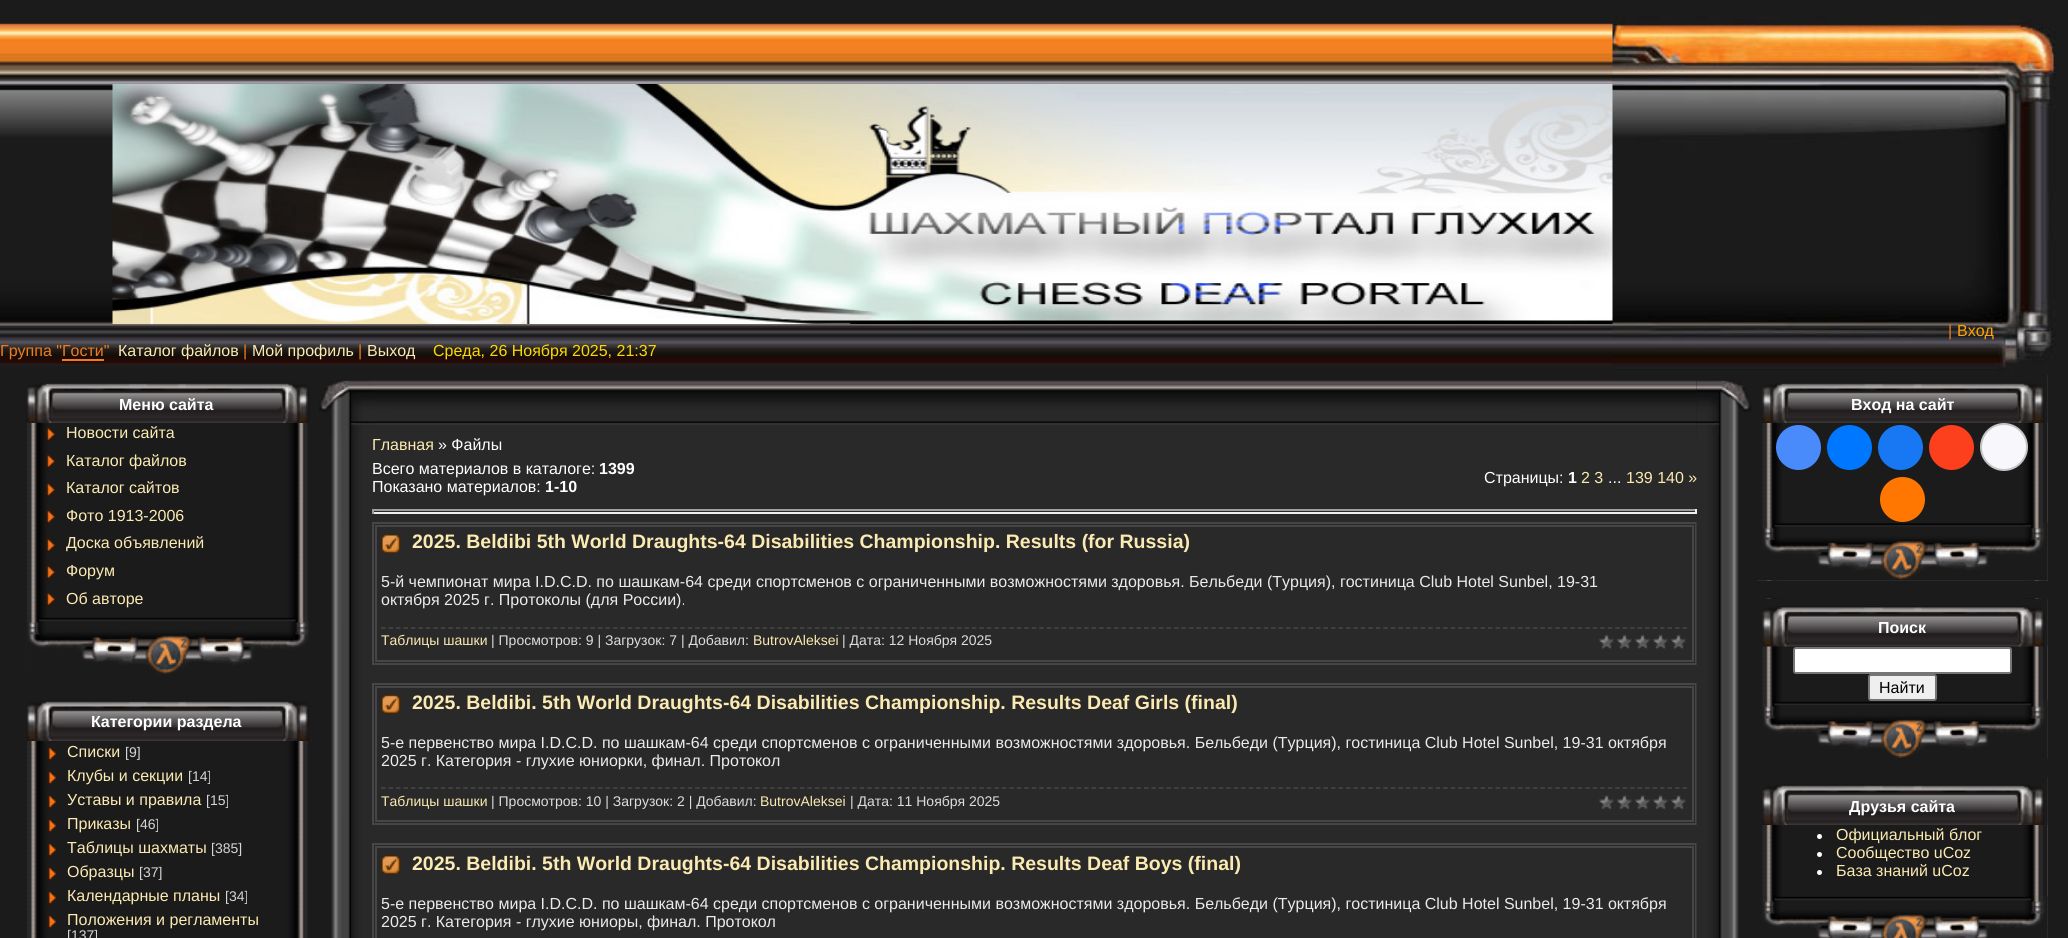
import math
import cairocffi as cairo

surface = cairo.ImageSurface(cairo.FORMAT_RGB24, 2068, 938)
ctx = cairo.Context(surface)
options = cairo.FontOptions()
options.set_hint_metrics(cairo.HINT_METRICS_OFF)
options.set_hint_style(cairo.HINT_STYLE_NONE)
ctx.set_font_options(options)
ctx.set_miter_limit(4)


def rgb(r, g, b):
    ctx.set_source_rgb(r / 255, g / 255, b / 255)


def face(family, size, italic, bold):
    ctx.select_font_face(family, cairo.FONT_SLANT_ITALIC if italic else cairo.FONT_SLANT_NORMAL, cairo.FONT_WEIGHT_BOLD if bold else cairo.FONT_WEIGHT_NORMAL)
    ctx.set_font_size(size)


def label(x, y, s):
    ctx.move_to(x, y)
    ctx.show_text(s)


def rect(x, y, w, h):
    ctx.rectangle(x, y, w, h)
    ctx.fill()


def rrect(x, y, w, h, r):
    ctx.new_sub_path()
    for i, (u, v) in enumerate([(x + w - r, y + h - r), (x + r, y + h - r), (x + r, y + r), (x + w - r, y + r)]):
        ctx.arc(u, v, r, i * math.pi / 2, (i + 1) * math.pi / 2)
    ctx.close_path()


def image(path, x, y, w, h):
    ctx.save()
    ctx.set_source_surface(cairo.ImageSurface.create_from_png(path), x, y)
    ctx.rectangle(x, y, w, h)
    ctx.fill()
    ctx.restore()


rgb(27, 27, 27)
ctx.paint()
image('image0.png', 0, 23, 1613, 343)
image('image1.png', 1612, 16, 456, 356)
face('Liberation Sans', 16, 0, 0)
rgb(241, 124, 28)
label(1948, 336, '|')
rgb(255, 165, 0)
label(1957, 336, 'Вход')
image('image2.png', 112, 84, 1501, 240)
rgb(241, 124, 28)
label(0, 356, 'Группа "Гости"')
rgb(251, 234, 178)
label(118, 356, 'Каталог файлов')
rgb(241, 124, 28)
label(243, 356, '|')
rgb(251, 234, 178)
label(252, 356, 'Мой профиль')
rgb(241, 124, 28)
label(358, 356, '|')
rgb(251, 234, 178)
label(367, 356, 'Выход')
rgb(255, 215, 0)
label(433, 356, 'Среда, 26 Ноября 2025, 21:37')
rgb(241, 124, 28)
rect(62, 359, 42, 2)
image('image3.png', 21, 375, 291, 300)
image('image4.png', 26, 375, 286, 48)
face('Liberation Sans', 16, 0, 1)
rgb(255, 255, 255)
label(119, 410, 'Меню сайта')
image('image5.png', 46, 427, 10, 14)
face('Liberation Sans', 16, 0, 0)
rgb(251, 234, 178)
label(66, 438, 'Новости сайта')
image('image5.png', 46, 454, 10, 14)
label(66, 466, 'Каталог файлов')
image('image6.png', 46, 483, 10, 14)
label(66, 493, 'Каталог сайтов')
image('image6.png', 46, 510, 10, 14)
label(66, 521, 'Фото 1913-2006')
image('image5.png', 46, 538, 10, 14)
label(66, 548, 'Доска объявлений')
image('image5.png', 46, 565, 10, 14)
label(66, 576, 'Форум')
image('image5.png', 46, 592, 10, 14)
label(66, 604, 'Об авторе')
image('image7.png', 27, 617, 282, 58)
image('image8.png', 21, 693, 291, 245)
image('image4.png', 26, 693, 286, 48)
face('Liberation Sans', 16, 0, 1)
rgb(255, 255, 255)
label(91, 727, 'Категории раздела')
image('image9.png', 47, 747, 11, 14)
face('Liberation Sans', 16, 0, 0)
rgb(251, 234, 178)
label(67, 757, 'Списки')
face('Liberation Sans', 14, 0, 0)
rgb(216, 213, 213)
label(125, 757, '[9]')
image('image9.png', 47, 771, 11, 14)
face('Liberation Sans', 16, 0, 0)
rgb(251, 234, 178)
label(67, 781, 'Клубы и секции')
face('Liberation Sans', 14, 0, 0)
rgb(216, 213, 213)
label(188, 781, '[14]')
image('image9.png', 47, 795, 11, 14)
face('Liberation Sans', 16, 0, 0)
rgb(251, 234, 178)
label(67, 805, 'Уставы и правила')
face('Liberation Sans', 14, 0, 0)
rgb(216, 213, 213)
label(206, 805, '[15]')
image('image9.png', 47, 819, 11, 14)
face('Liberation Sans', 16, 0, 0)
rgb(251, 234, 178)
label(67, 829, 'Приказы')
face('Liberation Sans', 14, 0, 0)
rgb(216, 213, 213)
label(136, 829, '[46]')
image('image9.png', 47, 843, 11, 14)
face('Liberation Sans', 16, 0, 0)
rgb(251, 234, 178)
label(67, 853, 'Таблицы шахматы')
face('Liberation Sans', 14, 0, 0)
rgb(216, 213, 213)
label(211, 853, '[385]')
image('image9.png', 47, 867, 11, 14)
face('Liberation Sans', 16, 0, 0)
rgb(251, 234, 178)
label(67, 877, 'Образцы')
face('Liberation Sans', 14, 0, 0)
rgb(216, 213, 213)
label(139, 877, '[37]')
image('image9.png', 47, 891, 11, 14)
face('Liberation Sans', 16, 0, 0)
rgb(251, 234, 178)
label(67, 901, 'Календарные планы')
face('Liberation Sans', 14, 0, 0)
rgb(216, 213, 213)
label(225, 901, '[34]')
image('image9.png', 47, 915, 11, 14)
face('Liberation Sans', 16, 0, 0)
rgb(251, 234, 178)
label(67, 925, 'Положения и регламенты')
face('Liberation Sans', 14, 0, 0)
rgb(216, 213, 213)
label(67, 940, '[137]')
image('image10.png', 319, 380, 53, 55)
image('image11.png', 372, 380, 1325, 55)
image('image12.png', 1696, 380, 56, 55)
image('image13.png', 331, 435, 41, 503)
rgb(41, 41, 41)
rect(372, 435, 1325, 503)
face('Liberation Sans', 16, 0, 0)
rgb(251, 234, 178)
label(372, 450, 'Главная')
rgb(255, 255, 255)
label(438, 450, '» Файлы')
label(372, 474, 'Всего материалов в каталоге:')
face('Liberation Sans', 16, 0, 1)
label(599, 474, '1399')
face('Liberation Sans', 16, 0, 0)
label(372, 492, 'Показано материалов:')
face('Liberation Sans', 16, 0, 1)
label(545, 492, '1-10')
face('Liberation Sans', 16, 0, 0)
label(1484, 483, 'Страницы:')
face('Liberation Sans', 16, 0, 1)
label(1568, 483, '1')
face('Liberation Sans', 16, 0, 0)
rgb(251, 234, 178)
label(1581, 483, '2 3')
rgb(255, 255, 255)
label(1608, 483, '...')
ctx.rectangle(373, 523, 1323, 141)
rgb(70, 70, 70)
ctx.stroke()
ctx.rectangle(373, 684, 1323, 140)
ctx.stroke()
ctx.rectangle(373, 844, 1323, 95)
ctx.stroke()
image('image18.png', 1696, 435, 43, 503)
rgb(251, 234, 178)
label(1626, 483, '139 140 »')
rgb(159, 159, 159)
rect(372, 509, 1325, 2)
rgb(238, 238, 238)
rect(1695, 509, 2, 5)
rect(372, 512, 1325, 2)
rgb(159, 159, 159)
rect(372, 509, 2, 5)
ctx.rectangle(376, 526, 1317, 135)
rgb(70, 70, 70)
ctx.stroke()
image('image14.png', 381, 534, 20, 20)
face('Liberation Sans', 19.5, 0, 1)
rgb(251, 234, 178)
label(412, 548, '2025. Beldibi 5th World Draughts-64 Disabilities Championship. Results (for Russia)')
face('Liberation Sans', 16, 0, 0)
rgb(235, 235, 235)
label(381, 587, '5-й чемпионат мира I.D.C.D. по шашкам-64 среди спортсменов с ограниченными возможностями здоровья. Бельбеди (Турция), гостиница Club Hotel Sunbel, 19-31')
label(381, 605, 'октября 2025 г. Протоколы (для России).')
ctx.new_path()
ctx.move_to(381, 628)
ctx.line_to(1687.5, 628)
rgb(70, 70, 70)
ctx.set_line_width(1.5)
ctx.set_dash([4.5, 2.98])
ctx.stroke()
face('Liberation Sans', 14, 0, 0)
rgb(251, 234, 178)
label(381, 645, 'Таблицы шашки')
rgb(221, 221, 221)
label(491, 645, '| Просмотров: 9 | Загрузок: 7 | Добавил:')
rgb(251, 234, 178)
label(753, 645, 'ButrovAleksei')
rgb(221, 221, 221)
label(842, 645, '| Дата: 12 Ноября 2025')
image('image15.png', 1598, 634, 88, 16)
ctx.rectangle(376, 687, 1317, 134)
rgb(70, 70, 70)
ctx.set_line_width(2)
ctx.set_dash([])
ctx.stroke()
image('image16.png', 381, 694, 20, 20)
face('Liberation Sans', 19.5, 0, 1)
rgb(251, 234, 178)
label(412, 709, '2025. Beldibi. 5th World Draughts-64 Disabilities Championship. Results Deaf Girls (final)')
face('Liberation Sans', 16, 0, 0)
rgb(235, 235, 235)
label(381, 748, '5-е первенство мира I.D.C.D. по шашкам-64 среди спортсменов с ограниченными возможностями здоровья. Бельбеди (Турция), гостиница Club Hotel Sunbel, 19-31 октября')
label(381, 766, '2025 г. Категория - глухие юниорки, финал. Протокол')
ctx.new_path()
ctx.move_to(381, 788)
ctx.line_to(1687.5, 788)
rgb(70, 70, 70)
ctx.set_line_width(1.5)
ctx.set_dash([4.5, 2.98])
ctx.stroke()
face('Liberation Sans', 14, 0, 0)
rgb(251, 234, 178)
label(381, 806, 'Таблицы шашки')
rgb(221, 221, 221)
label(491, 806, '| Просмотров: 10 | Загрузок: 2 | Добавил:')
rgb(251, 234, 178)
label(760, 806, 'ButrovAleksei')
rgb(221, 221, 221)
label(850, 806, '| Дата: 11 Ноября 2025')
image('image17.png', 1599, 795, 87, 15)
ctx.rectangle(376, 847, 1317, 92)
rgb(70, 70, 70)
ctx.set_line_width(2)
ctx.set_dash([])
ctx.stroke()
image('image14.png', 381, 855, 20, 20)
face('Liberation Sans', 19.5, 0, 1)
rgb(251, 234, 178)
label(412, 870, '2025. Beldibi. 5th World Draughts-64 Disabilities Championship. Results Deaf Boys (final)')
face('Liberation Sans', 16, 0, 0)
rgb(235, 235, 235)
label(381, 909, '5-е первенство мира I.D.C.D. по шашкам-64 среди спортсменов с ограниченными возможностями здоровья. Бельбеди (Турция), гостиница Club Hotel Sunbel, 19-31 октября')
label(381, 927, '2025 г. Категория - глухие юниоры, финал. Протокол')
rgb(88, 86, 87)
rect(1757, 375, 291, 206)
image('image19.png', 1757, 375, 291, 206)
image('image20.png', 1762, 375, 286, 48)
face('Liberation Sans', 16, 0, 1)
rgb(255, 255, 255)
label(1851, 410, 'Вход на сайт')
rgb(73, 139, 250)
ctx.new_path()
ctx.arc(1798.5, 447.5, 22.5, 0, 2 * math.pi)
ctx.fill()
rgb(0, 119, 255)
ctx.arc(1849.5, 447.5, 22.5, 0, 2 * math.pi)
ctx.fill()
rgb(24, 119, 242)
ctx.arc(1900.5, 447.5, 22.5, 0, 2 * math.pi)
ctx.fill()
rgb(252, 63, 29)
ctx.arc(1951.5, 447.5, 22.5, 0, 2 * math.pi)
ctx.fill()
rgb(248, 248, 252)
ctx.arc(2004, 447, 23, 0, 2 * math.pi)
ctx.fill_preserve()
rgb(196, 196, 196)
ctx.stroke()
rgb(255, 119, 0)
ctx.arc(1902.5, 499.5, 22.5, 0, 2 * math.pi)
ctx.fill()
image('image21.png', 1757, 522, 291, 59)
rgb(88, 86, 87)
rect(2047, 599, 1, 160)
image('image22.png', 1757, 598, 291, 161)
image('image23.png', 1762, 598, 286, 49)
rgb(255, 255, 255)
label(1878, 633, 'Поиск')
rrect(1794, 648, 217, 25, 2)
ctx.fill_preserve()
rgb(118, 118, 118)
ctx.stroke()
image('image24.png', 1762, 700, 286, 59)
rgb(239, 239, 239)
rrect(1869, 675, 67, 25, 2)
ctx.fill_preserve()
rgb(118, 118, 118)
ctx.stroke()
face('Liberation Sans', 16, 0, 0)
rgb(0, 0, 0)
label(1879, 693, 'Найти')
rgb(88, 86, 87)
rect(2047, 777, 1, 161)
image('image25.png', 1757, 777, 291, 161)
image('image20.png', 1762, 777, 286, 48)
face('Liberation Sans', 16, 0, 1)
rgb(255, 255, 255)
label(1849, 812, 'Друзья сайта')
ctx.new_path()
ctx.arc(1819.5, 836.5, 2.5, 0, 2 * math.pi)
ctx.fill()
face('Liberation Sans', 16, 0, 0)
rgb(251, 234, 178)
label(1836, 840, 'Официальный блог')
rgb(255, 255, 255)
ctx.new_path()
ctx.arc(1819.5, 854.5, 2.5, 0, 2 * math.pi)
ctx.fill()
rgb(251, 234, 178)
label(1836, 858, 'Сообщество uCoz')
rgb(255, 255, 255)
ctx.new_path()
ctx.arc(1819.5, 872.5, 2.5, 0, 2 * math.pi)
ctx.fill()
rgb(251, 234, 178)
label(1836, 876, 'База знаний uCoz')
image('image26.png', 1762, 895, 286, 43)
surface.write_to_png('render.png')
